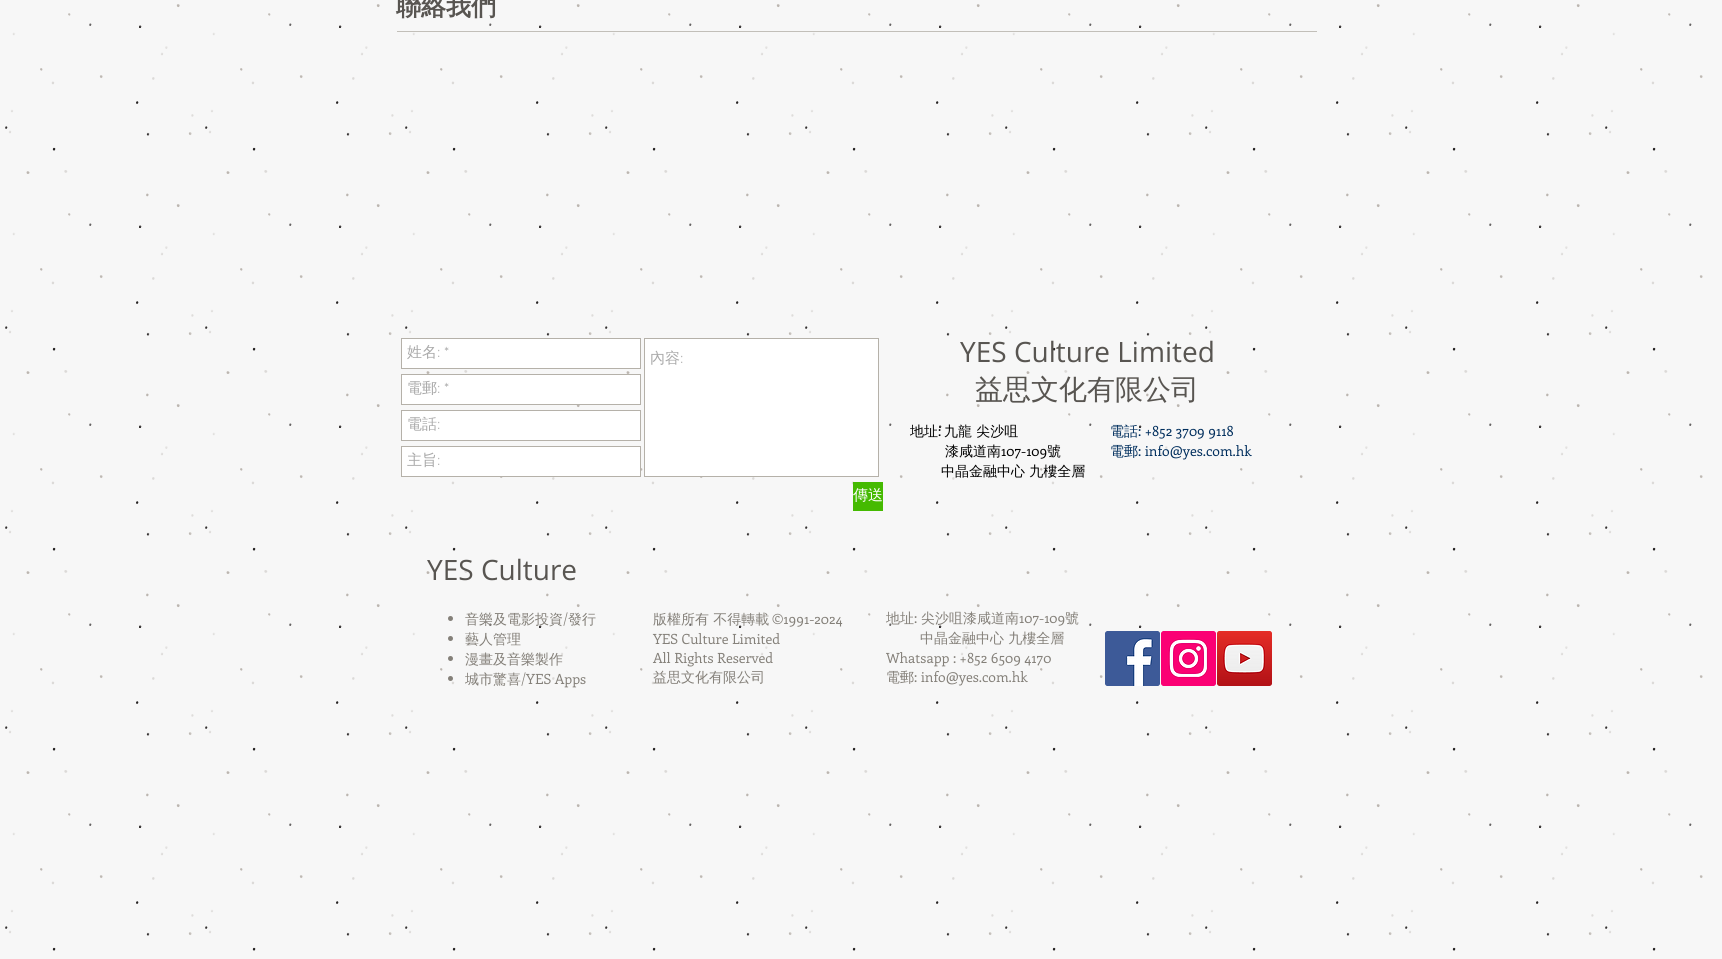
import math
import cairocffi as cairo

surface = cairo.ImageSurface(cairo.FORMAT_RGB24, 1722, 959)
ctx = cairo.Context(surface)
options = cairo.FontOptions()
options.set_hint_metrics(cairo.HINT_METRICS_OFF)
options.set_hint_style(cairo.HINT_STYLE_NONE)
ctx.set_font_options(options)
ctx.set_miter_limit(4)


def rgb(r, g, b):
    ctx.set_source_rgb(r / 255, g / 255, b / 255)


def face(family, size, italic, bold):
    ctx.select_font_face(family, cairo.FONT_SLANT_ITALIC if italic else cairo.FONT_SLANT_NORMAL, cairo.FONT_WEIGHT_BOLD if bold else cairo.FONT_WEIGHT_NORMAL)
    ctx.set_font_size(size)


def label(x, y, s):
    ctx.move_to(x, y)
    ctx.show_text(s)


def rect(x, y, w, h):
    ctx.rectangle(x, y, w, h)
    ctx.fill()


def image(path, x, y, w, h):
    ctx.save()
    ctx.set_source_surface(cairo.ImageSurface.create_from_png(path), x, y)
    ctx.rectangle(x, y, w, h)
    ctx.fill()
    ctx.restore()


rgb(247, 247, 247)
ctx.paint()
image('image3.png', 5, 4, 1698, 947)
face('WenQuanYi Zen Hei', 25, 0, 1)
rgb(88, 85, 81)
label(396, 15, '聯絡我們')
rgb(194, 191, 185)
rect(397, 31, 920, 1)
rgb(255, 255, 255)
ctx.rectangle(401.5, 338.5, 239, 30)
ctx.fill_preserve()
rgb(181, 177, 169)
ctx.set_line_width(1)
ctx.stroke()
face('WenQuanYi Zen Hei Medium', 15, 0, 0)
rgb(169, 169, 169)
label(407, 357, '姓名')
face('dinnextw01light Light', 15, 0, 0)
label(437, 357, ': *')
rgb(255, 255, 255)
ctx.rectangle(644.5, 338.5, 234, 138)
ctx.fill_preserve()
rgb(181, 177, 169)
ctx.stroke()
face('WenQuanYi Zen Hei Medium', 15, 0, 0)
rgb(169, 169, 169)
label(650, 363, '內容')
face('dinnextw01light Light', 15, 0, 0)
label(680, 363, ':')
rgb(255, 255, 255)
ctx.rectangle(401.5, 374.5, 239, 30)
ctx.fill_preserve()
rgb(181, 177, 169)
ctx.stroke()
face('WenQuanYi Zen Hei Medium', 15, 0, 0)
rgb(169, 169, 169)
label(407, 393, '電郵')
face('dinnextw01light Light', 15, 0, 0)
label(437, 393, ': *')
rgb(255, 255, 255)
ctx.rectangle(401.5, 410.5, 239, 30)
ctx.fill_preserve()
rgb(181, 177, 169)
ctx.stroke()
face('WenQuanYi Zen Hei Medium', 15, 0, 0)
rgb(169, 169, 169)
label(407, 429, '電話')
face('dinnextw01light Light', 15, 0, 0)
label(437, 429, ':')
rgb(255, 255, 255)
ctx.rectangle(401.5, 446.5, 239, 30)
ctx.fill_preserve()
rgb(181, 177, 169)
ctx.stroke()
face('WenQuanYi Zen Hei Medium', 15, 0, 0)
rgb(169, 169, 169)
label(407, 465, '主旨')
face('dinnextw01light Light', 15, 0, 0)
label(437, 465, ':')
rgb(69, 186, 1)
rect(853, 482, 30, 29)
face('WenQuanYi Zen Hei Medium', 15, 0, 0)
rgb(255, 255, 255)
label(853, 500, '傳送')
face('Open Sans', 28, 0, 0)
rgb(88, 85, 81)
label(960, 362, 'YES Culture Limited')
face('WenQuanYi Zen Hei Medium', 28, 0, 0)
label(975, 399, '益思文化有限公司')
face('WenQuanYi Zen Hei Medium', 14, 0, 0)
rgb(0, 0, 0)
label(910, 436, '地址')
face('Enriqueta', 14, 0, 0)
label(938, 436, ':')
face('WenQuanYi Zen Hei Medium', 14, 0, 0)
label(944, 436, '九龍 尖沙咀')
label(945, 456, '漆咸道南')
face('Enriqueta', 14, 0, 0)
label(1001, 456, '107-109')
face('WenQuanYi Zen Hei Medium', 14, 0, 0)
label(1047, 456, '號')
label(941, 476, '中晶金融中心 九樓全層')
rgb(0, 46, 93)
label(1110, 436, '電話')
face('Enriqueta', 14, 0, 0)
label(1138, 436, ': +852 3709 9118')
face('WenQuanYi Zen Hei Medium', 14, 0, 0)
label(1110, 456, '電郵')
face('Enriqueta', 14, 0, 0)
label(1138, 456, ': info@yes.com.hk')
face('Open Sans', 28, 0, 0)
rgb(88, 85, 81)
label(427, 580, 'YES Culture')
rgb(132, 128, 121)
ctx.new_path()
ctx.arc(450.5, 618.5, 2.5, 0, 2 * math.pi)
ctx.fill()
face('WenQuanYi Zen Hei Medium', 14, 0, 0)
label(465, 624, '音樂及電影投資')
face('Enriqueta', 14, 0, 0)
label(563, 624, '/')
face('WenQuanYi Zen Hei Medium', 14, 0, 0)
label(568, 624, '發行')
ctx.new_path()
ctx.arc(450.5, 638.5, 2.5, 0, 2 * math.pi)
ctx.fill()
label(465, 644, '藝人管理')
ctx.new_path()
ctx.arc(450.5, 658.5, 2.5, 0, 2 * math.pi)
ctx.fill()
label(465, 664, '漫畫及音樂製作')
ctx.new_path()
ctx.arc(450.5, 678.5, 2.5, 0, 2 * math.pi)
ctx.fill()
label(465, 684, '城市驚喜')
face('Enriqueta', 14, 0, 0)
label(521, 684, '/YES Apps')
face('WenQuanYi Zen Hei Medium', 14, 0, 0)
label(653, 624, '版權所有 不得轉載')
face('Enriqueta', 14, 0, 0)
label(772, 624, '©1991-2024')
label(653, 644, 'YES Culture Limited')
label(653, 663, 'All Rights Reserved')
face('WenQuanYi Zen Hei Medium', 14, 0, 0)
label(653, 682, '益思文化有限公司')
label(886, 623, '地址')
face('Enriqueta', 14, 0, 0)
label(914, 623, ':')
face('WenQuanYi Zen Hei Medium', 14, 0, 0)
label(921, 623, '尖沙咀漆咸道南')
face('Enriqueta', 14, 0, 0)
label(1019, 623, '107-109')
face('WenQuanYi Zen Hei Medium', 14, 0, 0)
label(1065, 623, '號')
label(920, 643, '中晶金融中心 九樓全層')
face('Enriqueta', 14, 0, 0)
label(886, 663, 'Whatsapp : +852 6509 4170')
face('WenQuanYi Zen Hei Medium', 14, 0, 0)
label(886, 682, '電郵')
face('Enriqueta', 14, 0, 0)
label(914, 682, ': info@yes.com.hk')
image('image0.png', 1105, 631, 55, 55)
image('image1.png', 1161, 631, 55, 55)
image('image2.png', 1217, 631, 55, 55)
surface.write_to_png('render.png')
